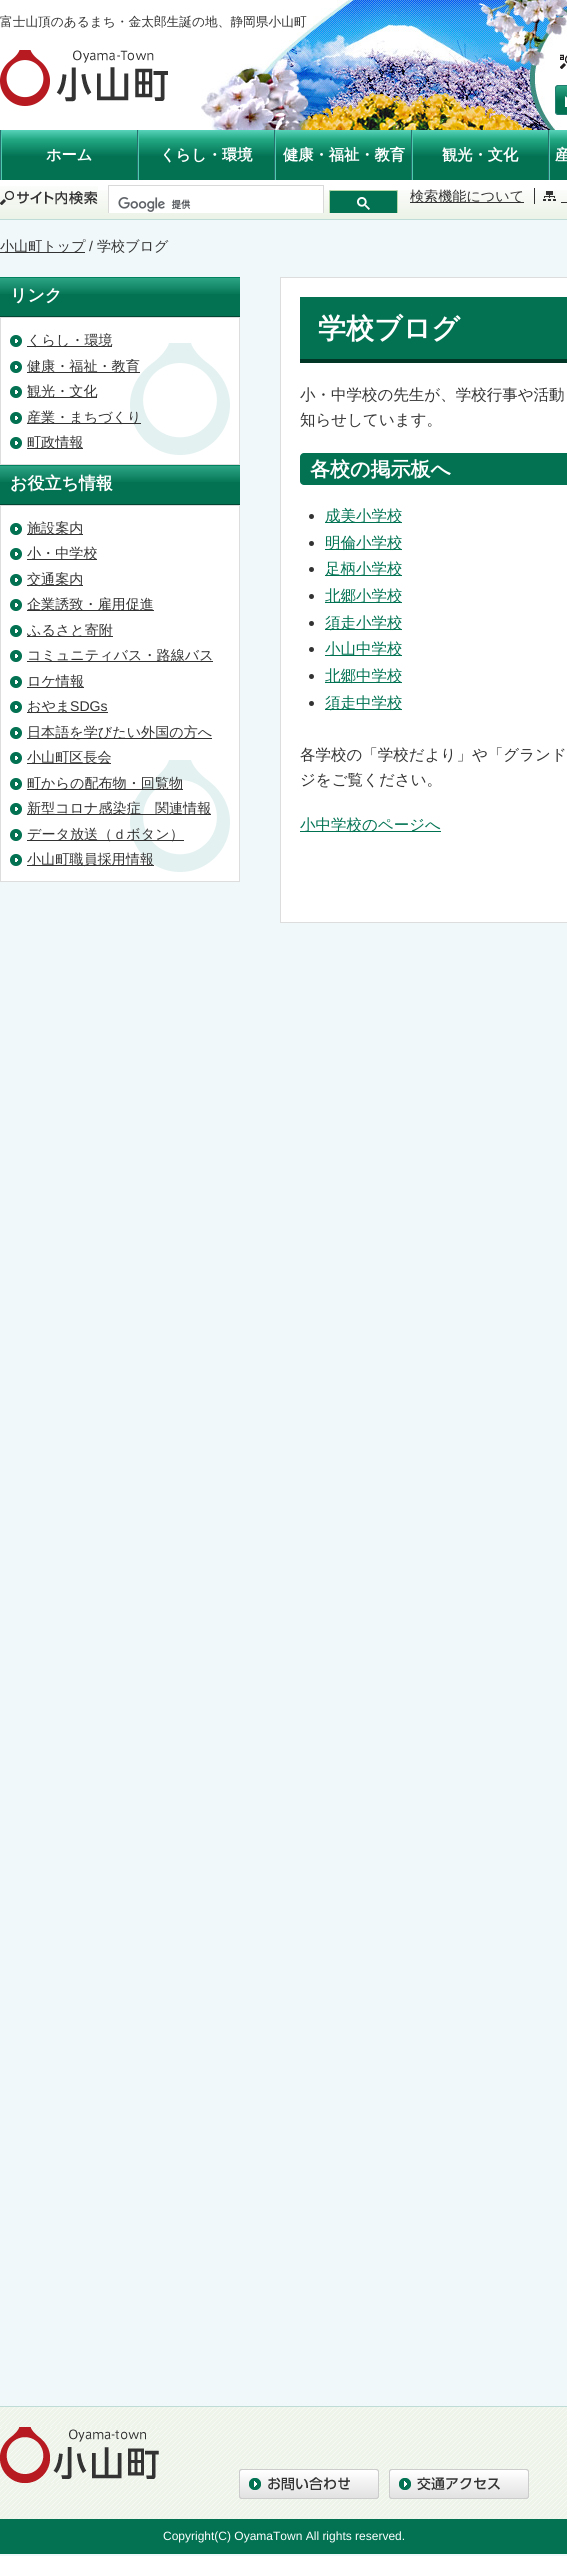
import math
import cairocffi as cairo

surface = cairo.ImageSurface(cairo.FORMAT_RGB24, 567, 2556)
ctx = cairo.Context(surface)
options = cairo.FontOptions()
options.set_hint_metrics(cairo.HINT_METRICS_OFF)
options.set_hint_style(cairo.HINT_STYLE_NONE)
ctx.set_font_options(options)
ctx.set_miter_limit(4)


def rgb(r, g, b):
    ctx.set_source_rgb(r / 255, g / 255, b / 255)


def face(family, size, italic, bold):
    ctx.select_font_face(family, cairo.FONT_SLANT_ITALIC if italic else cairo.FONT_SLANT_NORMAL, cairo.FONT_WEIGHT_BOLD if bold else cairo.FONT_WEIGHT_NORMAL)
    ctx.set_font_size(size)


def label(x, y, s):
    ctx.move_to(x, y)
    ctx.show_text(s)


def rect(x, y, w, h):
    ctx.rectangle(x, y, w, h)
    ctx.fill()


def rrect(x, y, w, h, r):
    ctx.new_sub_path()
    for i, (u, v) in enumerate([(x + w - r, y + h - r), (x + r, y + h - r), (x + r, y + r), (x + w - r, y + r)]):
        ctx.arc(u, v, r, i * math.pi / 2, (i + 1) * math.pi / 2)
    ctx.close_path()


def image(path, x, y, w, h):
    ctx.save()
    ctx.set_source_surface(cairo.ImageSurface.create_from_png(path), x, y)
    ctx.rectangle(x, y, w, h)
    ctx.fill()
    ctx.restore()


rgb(241, 248, 250)
ctx.paint()
rgb(255, 255, 255)
rect(0, 0, 567, 190)
image('image0.png', 201, 0, 366, 130)
face('WenQuanYi Zen Hei Medium', 12.7, 0, 0)
rgb(51, 51, 51)
label(0, 26, '富士山頂のあるまち・金太郎生誕の地、静岡県小山町')
image('image1.png', 0, 50, 168, 56)
image('image2.png', 560, 54, 7, 15)
image('image3.png', 555, 85, 12, 30)
gradient = cairo.LinearGradient(284, 130, 284, 180)
gradient.add_color_stop_rgba(0, 0.345, 0.827, 0.733, 1)
gradient.add_color_stop_rgba(0.19, 0.133, 0.659, 0.514, 1)
gradient.add_color_stop_rgba(0.53, 0.008, 0.447, 0.325, 1)
ctx.set_source(gradient)
rect(2, 130, 565, 50)
rgb(77, 202, 176)
rect(1, 130, 1, 50)
rgb(40, 111, 111)
rect(0, 130, 1, 50)
face('WenQuanYi Zen Hei', 15.25, 0, 1)
rgb(255, 255, 255)
label(46, 160, 'ホーム')
rgb(77, 202, 176)
rect(138, 130, 1, 50)
rgb(40, 111, 111)
rect(137, 130, 1, 50)
rgb(255, 255, 255)
label(160, 160, 'くらし・環境')
rgb(77, 202, 176)
rect(275, 130, 1, 50)
rgb(40, 111, 111)
rect(274, 130, 1, 50)
rgb(255, 255, 255)
label(283, 160, '健康・福祉・教育')
rgb(77, 202, 176)
rect(412, 130, 1, 50)
rgb(40, 111, 111)
rect(411, 130, 1, 50)
rgb(255, 255, 255)
label(442, 160, '観光・文化')
rgb(77, 202, 176)
rect(549, 130, 1, 50)
rgb(40, 111, 111)
rect(548, 130, 1, 50)
rgb(255, 255, 255)
label(555, 160, '産')
image('image4.png', 0, 190, 567, 29)
rgb(192, 220, 214)
rect(0, 219, 567, 1)
image('image5.png', 0, 186, 98, 19)
rgb(255, 255, 255)
rect(109, 190, 214, 23)
ctx.save()
ctx.rectangle(0, 185, 400, 28)
ctx.clip()
ctx.rectangle(108.5, 185.5, 215, 36)
rgb(217, 217, 217)
ctx.set_line_width(1)
ctx.stroke()
ctx.restore()
image('image6.png', 118, 197, 73, 15)
rgb(3, 114, 82)
ctx.new_path()
ctx.move_to(331, 190)
ctx.line_to(396, 190)
ctx.curve_to(397, 190, 398, 191, 398, 192)
ctx.line_to(398, 213)
ctx.line_to(329, 213)
ctx.line_to(329, 192)
ctx.curve_to(329, 191, 330, 190, 331, 190)
ctx.close_path()
ctx.fill()
ctx.save()
ctx.rectangle(0, 185, 400, 28)
ctx.clip()
rrect(329.5, 190.5, 68, 26, 1.5)
rgb(182, 215, 168)
ctx.set_line_width(1)
ctx.stroke()
ctx.restore()
image('image7.png', 357, 197, 13, 13)
rgb(51, 51, 51)
rect(410, 202, 114, 1)
face('WenQuanYi Zen Hei Medium', 14.1, 0, 0)
label(410, 201, '検索機能について')
rect(534, 188, 1, 16)
image('image8.png', 543, 191, 13, 10)
rect(561, 202, 6, 1)
rect(0, 252, 85, 1)
label(0, 251, '小山町トップ')
face('Liberation Sans', 14.1, 0, 0)
label(89, 251, '/')
face('WenQuanYi Zen Hei Medium', 14.1, 0, 0)
label(97, 251, '学校ブログ')
rgb(2, 114, 83)
rect(0, 294, 240, 22)
image('image9.png', 0, 278, 240, 16)
rgb(2, 130, 95)
rect(0, 277, 240, 1)
rgb(1, 69, 50)
rect(0, 316, 240, 1)
face('WenQuanYi Zen Hei', 17, 0, 1)
rgb(255, 255, 255)
label(10, 301, 'リンク')
rect(1, 318, 238, 146)
image('image10.png', 130, 343, 100, 112)
ctx.rectangle(0.5, 317.5, 239, 147)
rgb(221, 221, 221)
ctx.set_line_width(1)
ctx.stroke()
image('image11.png', 10, 335, 12, 12)
rgb(51, 51, 51)
rect(27, 346, 85, 1)
face('WenQuanYi Zen Hei Medium', 14.1, 0, 0)
label(27, 345, 'くらし・環境')
image('image11.png', 10, 361, 12, 12)
rect(27, 372, 113, 1)
label(27, 371, '健康・福祉・教育')
image('image11.png', 10, 386, 12, 12)
rect(27, 397, 70, 1)
label(27, 396, '観光・文化')
image('image11.png', 10, 412, 12, 12)
rect(27, 423, 114, 1)
label(27, 422, '産業・まちづくり')
image('image11.png', 10, 437, 12, 12)
rect(27, 448, 56, 1)
label(27, 447, '町政情報')
rgb(2, 114, 83)
rect(0, 482, 240, 22)
image('image9.png', 0, 466, 240, 16)
rgb(2, 130, 95)
rect(0, 465, 240, 1)
rgb(1, 69, 50)
rect(0, 504, 240, 1)
face('WenQuanYi Zen Hei', 17, 0, 1)
rgb(255, 255, 255)
label(10, 489, 'お役立ち情報')
rect(1, 506, 238, 375)
image('image10.png', 130, 760, 100, 112)
ctx.rectangle(0.5, 505.5, 239, 376)
rgb(221, 221, 221)
ctx.stroke()
image('image11.png', 10, 523, 12, 12)
rgb(51, 51, 51)
rect(27, 534, 56, 1)
face('WenQuanYi Zen Hei Medium', 14.1, 0, 0)
label(27, 533, '施設案内')
image('image11.png', 10, 548, 12, 12)
rect(27, 559, 70, 1)
label(27, 558, '小・中学校')
image('image11.png', 10, 574, 12, 12)
rect(27, 585, 56, 1)
label(27, 584, '交通案内')
image('image11.png', 10, 599, 12, 12)
rect(27, 610, 127, 1)
label(27, 609, '企業誘致・雇用促進')
image('image11.png', 10, 625, 12, 12)
rect(27, 636, 86, 1)
label(27, 635, 'ふるさと寄附')
image('image11.png', 10, 650, 12, 12)
rect(27, 661, 186, 1)
label(27, 660, 'コミュニティバス・路線バス')
image('image11.png', 10, 676, 12, 12)
rect(27, 687, 57, 1)
label(27, 686, 'ロケ情報')
image('image11.png', 10, 701, 12, 12)
rect(27, 712, 81, 1)
label(27, 711, 'おやま')
face('Liberation Sans', 14.1, 0, 0)
label(70, 711, 'SDGs')
image('image11.png', 10, 727, 12, 12)
rect(27, 738, 185, 1)
face('WenQuanYi Zen Hei Medium', 14.1, 0, 0)
label(27, 737, '日本語を学びたい外国の方へ')
image('image11.png', 10, 752, 12, 12)
rect(27, 763, 84, 1)
label(27, 762, '小山町区長会')
image('image11.png', 10, 778, 12, 12)
rect(27, 789, 156, 1)
label(27, 788, '町からの配布物・回覧物')
image('image11.png', 10, 803, 12, 12)
rect(27, 814, 184, 1)
label(27, 813, '新型コロナ感染症　関連情報')
image('image11.png', 10, 829, 12, 12)
rect(27, 840, 157, 1)
label(27, 839, 'データ放送（ｄボタン）')
image('image11.png', 10, 854, 12, 12)
rect(27, 865, 127, 1)
label(27, 864, '小山町職員採用情報')
rgb(255, 255, 255)
ctx.rectangle(280.5, 277.5, 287, 645)
ctx.fill_preserve()
rgb(221, 221, 221)
ctx.stroke()
rgb(2, 114, 83)
rect(300, 297, 267, 62)
rgb(1, 54, 39)
rect(300, 359, 267, 4)
face('WenQuanYi Zen Hei', 28, 0, 1)
rgb(255, 255, 255)
label(318, 338, '学校ブログ')
face('WenQuanYi Zen Hei Medium', 15.5, 0, 0)
rgb(51, 51, 51)
label(300, 400, '小・中学校の先生が、学校行事や活動')
label(300, 425, '知らせしています。')
rgb(2, 114, 83)
rrect(300, 453, 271, 32, 4)
ctx.fill()
face('WenQuanYi Zen Hei', 20, 0, 1)
rgb(255, 255, 255)
label(310, 476, '各校の掲示板へ')
rgb(51, 51, 51)
ctx.new_path()
ctx.arc(311.5, 516.5, 2.5, 0, 2 * math.pi)
ctx.fill()
rgb(0, 114, 82)
rect(325, 522, 77, 1)
face('WenQuanYi Zen Hei Medium', 15.5, 0, 0)
label(325, 521, '成美小学校')
rgb(51, 51, 51)
ctx.new_path()
ctx.arc(311.5, 543.5, 2.5, 0, 2 * math.pi)
ctx.fill()
rgb(0, 114, 82)
rect(325, 549, 77, 1)
label(325, 548, '明倫小学校')
rgb(51, 51, 51)
ctx.new_path()
ctx.arc(311.5, 569.5, 2.5, 0, 2 * math.pi)
ctx.fill()
rgb(0, 114, 82)
rect(325, 575, 77, 1)
label(325, 574, '足柄小学校')
rgb(51, 51, 51)
ctx.new_path()
ctx.arc(311.5, 596.5, 2.5, 0, 2 * math.pi)
ctx.fill()
rgb(0, 114, 82)
rect(325, 602, 77, 1)
label(325, 601, '北郷小学校')
rgb(51, 51, 51)
ctx.new_path()
ctx.arc(311.5, 623.5, 2.5, 0, 2 * math.pi)
ctx.fill()
rgb(0, 114, 82)
rect(325, 629, 77, 1)
label(325, 628, '須走小学校')
rgb(51, 51, 51)
ctx.new_path()
ctx.arc(311.5, 649.5, 2.5, 0, 2 * math.pi)
ctx.fill()
rgb(0, 114, 82)
rect(325, 655, 77, 1)
label(325, 654, '小山中学校')
rgb(51, 51, 51)
ctx.new_path()
ctx.arc(311.5, 676.5, 2.5, 0, 2 * math.pi)
ctx.fill()
rgb(0, 114, 82)
rect(325, 682, 77, 1)
label(325, 681, '北郷中学校')
rgb(51, 51, 51)
ctx.new_path()
ctx.arc(311.5, 703.5, 2.5, 0, 2 * math.pi)
ctx.fill()
rgb(0, 114, 82)
rect(325, 709, 77, 1)
label(325, 708, '須走中学校')
rgb(51, 51, 51)
label(300, 760, '各学校の「学校だより」や「グランド')
label(300, 785, 'ジをご覧ください。')
rgb(0, 114, 82)
rect(300, 831, 141, 1)
label(300, 830, '小中学校のページへ')
image('image12.png', 0, 2407, 567, 112)
rgb(192, 220, 214)
rect(0, 2406, 567, 1)
image('image13.png', 0, 2427, 159, 56)
image('image14.png', 239, 2469, 140, 30)
image('image15.png', 389, 2469, 140, 30)
rgb(2, 114, 83)
rect(0, 2519, 567, 35)
face('Liberation Sans', 12, 0, 0)
rgb(255, 255, 255)
label(163, 2540, 'Copyright(C) OyamaTown All rights reserved.')
surface.write_to_png('render.png')
